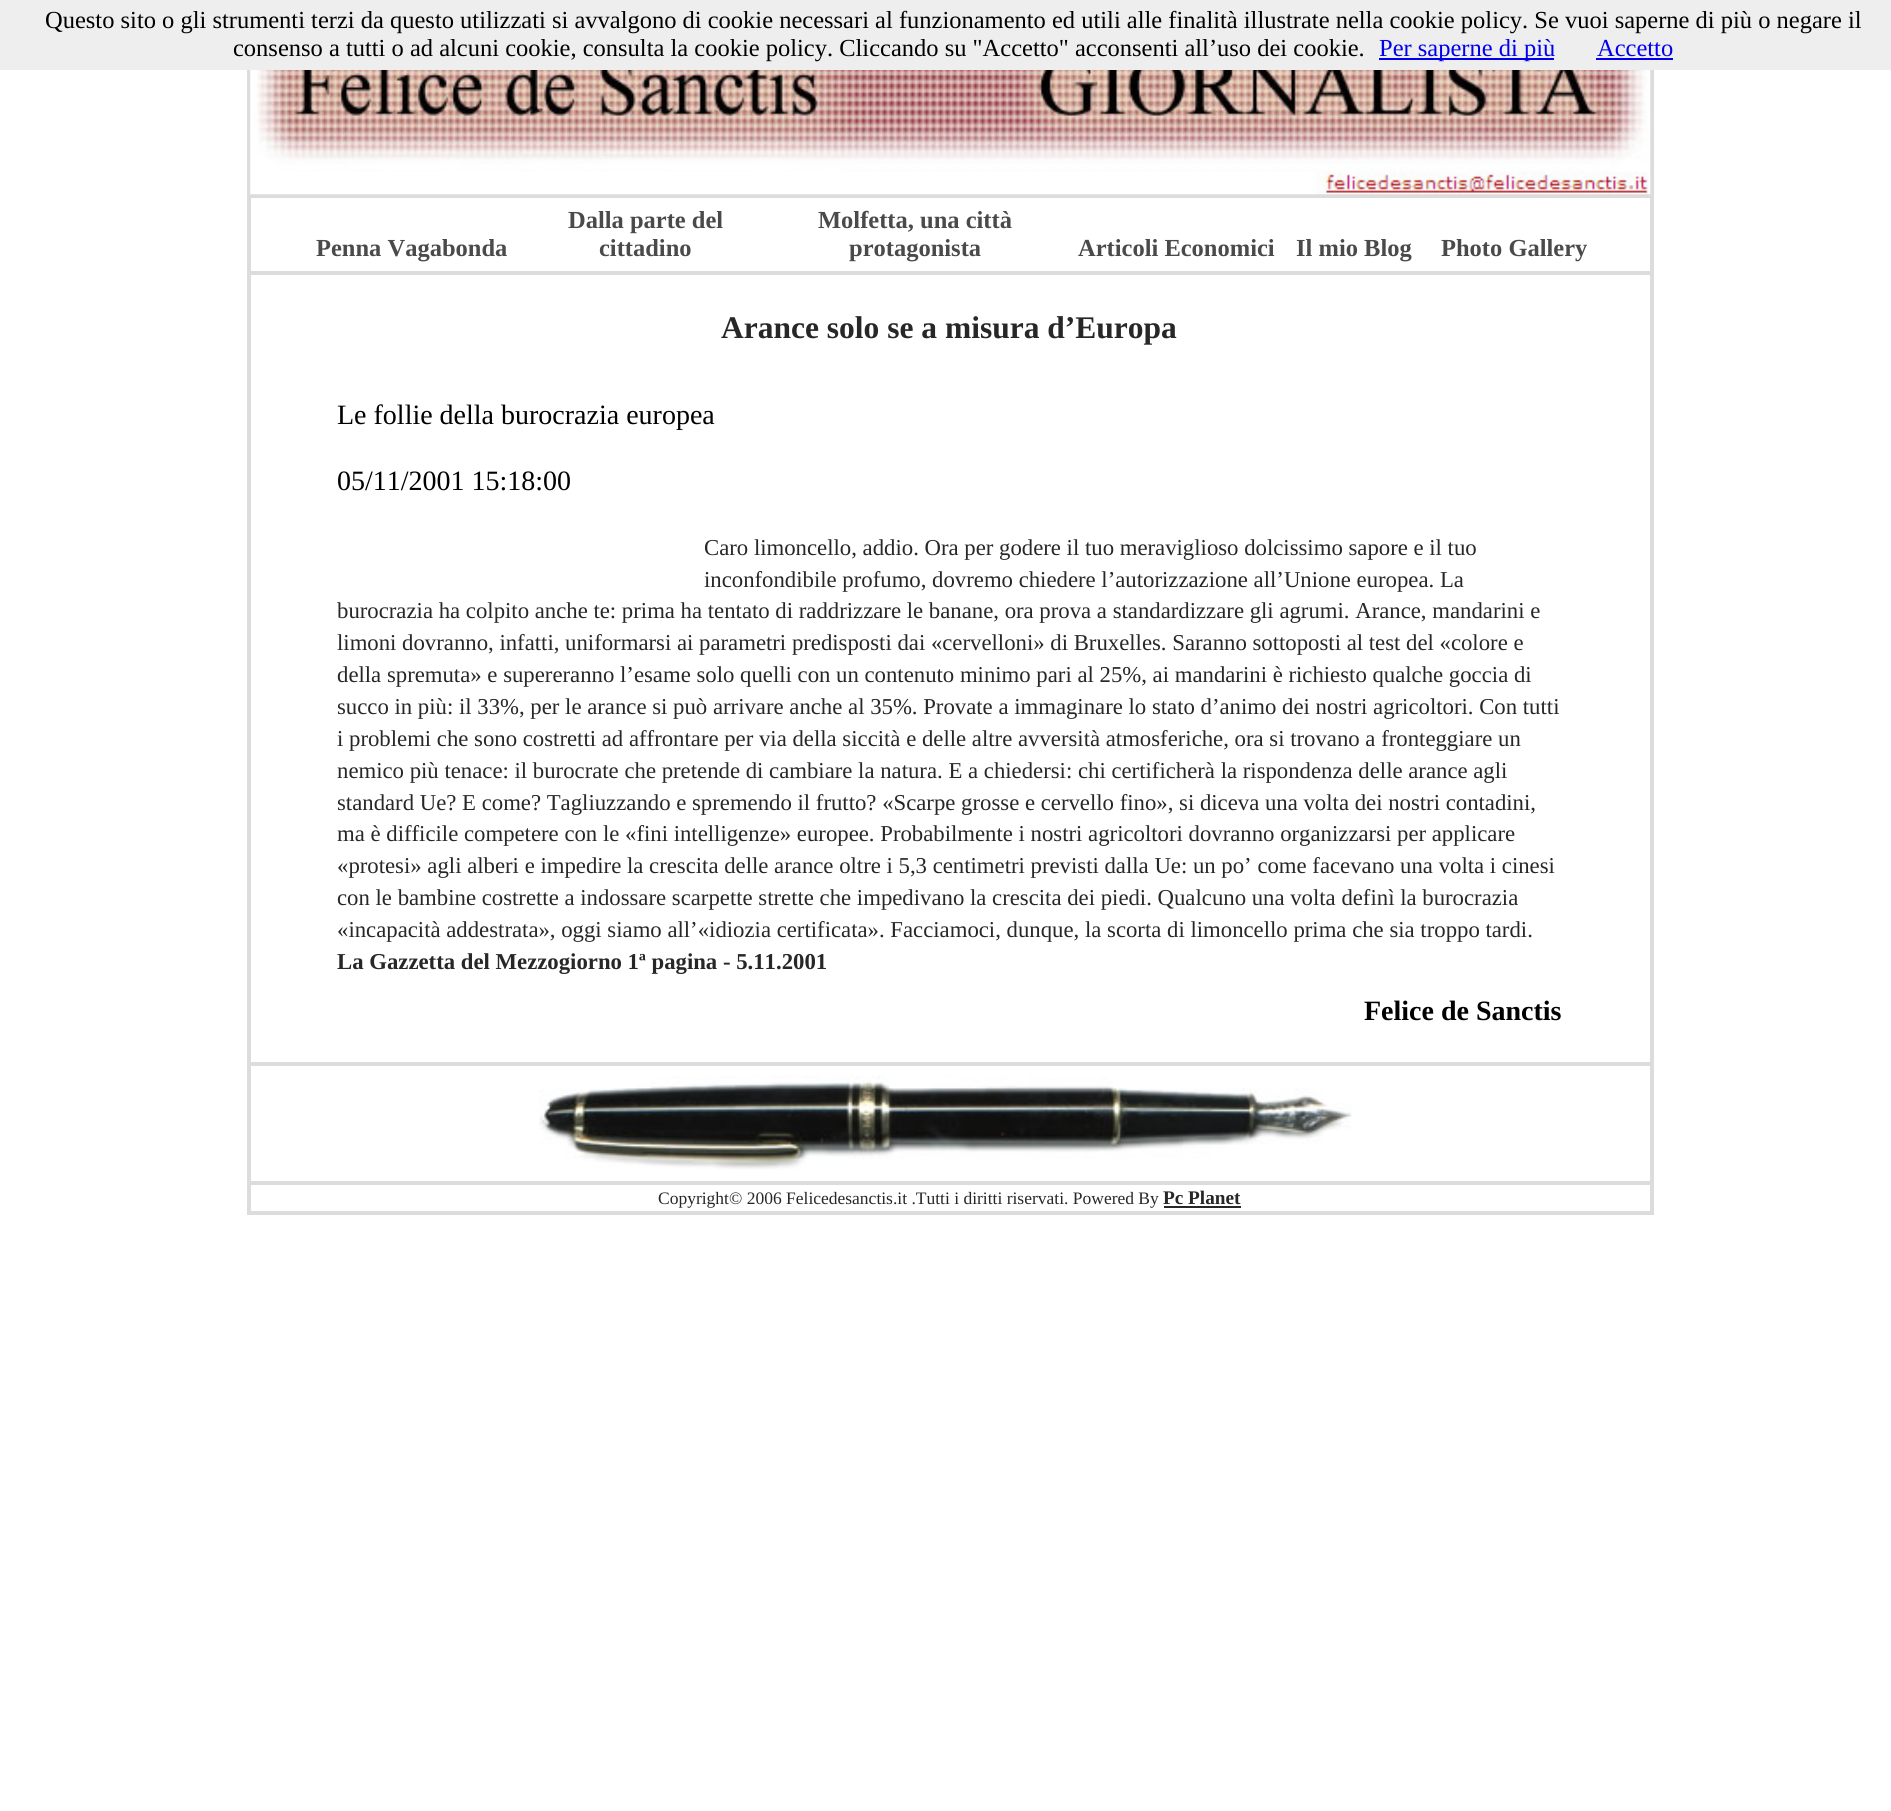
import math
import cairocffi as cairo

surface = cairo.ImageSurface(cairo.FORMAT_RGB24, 1891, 1811)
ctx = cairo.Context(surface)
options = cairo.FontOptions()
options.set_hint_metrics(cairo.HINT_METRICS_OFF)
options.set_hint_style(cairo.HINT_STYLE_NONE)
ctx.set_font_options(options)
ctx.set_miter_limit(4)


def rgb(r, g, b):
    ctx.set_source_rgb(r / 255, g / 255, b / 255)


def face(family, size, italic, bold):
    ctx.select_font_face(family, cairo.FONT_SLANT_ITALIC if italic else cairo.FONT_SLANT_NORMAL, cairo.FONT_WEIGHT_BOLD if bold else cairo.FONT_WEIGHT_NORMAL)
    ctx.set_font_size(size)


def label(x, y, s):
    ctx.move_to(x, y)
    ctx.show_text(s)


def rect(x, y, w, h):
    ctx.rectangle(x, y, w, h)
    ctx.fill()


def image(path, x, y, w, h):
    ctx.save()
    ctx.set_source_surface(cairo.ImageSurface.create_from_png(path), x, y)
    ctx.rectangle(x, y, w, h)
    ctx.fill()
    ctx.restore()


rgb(255, 255, 255)
ctx.paint()
ctx.rectangle(249, 16, 1403, 180)
rgb(220, 220, 220)
ctx.set_line_width(4)
ctx.stroke()
rgb(238, 238, 238)
rect(0, 0, 1891, 70)
face('Liberation Serif', 24.5, 0, 0)
rgb(0, 0, 0)
label(45, 28, 'Questo sito o gli strumenti terzi da questo utilizzati si avvalgono di cookie necessari al funzionamento ed utili alle finalità illustrate nella cookie policy. Se vuoi saperne di più o negare il')
label(233, 56, 'consenso a tutti o ad alcuni cookie, consulta la cookie policy. Cliccando su "Accetto" acconsenti all’uso dei cookie.')
rgb(0, 0, 238)
rect(1379, 58, 175, 2)
label(1379, 56, 'Per saperne di più')
label(1597, 56, 'Accetto')
rect(1596, 58, 77, 2)
image('image0.png', 250, 70, 1401, 125)
rgb(220, 220, 220)
rect(1650, 198, 4, 864)
rect(247, 271, 1407, 4)
rect(247, 198, 4, 864)
face('Liberation Serif', 24.5, 0, 1)
rgb(74, 74, 74)
label(316, 256, 'Penna Vagabonda')
label(568, 228, 'Dalla parte del')
label(599, 256, 'cittadino')
label(818, 228, 'Molfetta, una città')
label(849, 256, 'protagonista')
label(1078, 256, 'Articoli Economici')
label(1296, 256, 'Il mio Blog')
label(1441, 256, 'Photo Gallery')
face('Liberation Serif', 31.5, 0, 1)
rgb(40, 39, 39)
label(721, 338, 'Arance solo se a misura d’Europa')
face('Liberation Serif', 28, 0, 0)
rgb(0, 0, 0)
label(337, 424, 'Le follie della burocrazia europea')
label(337, 490, '05/11/2001 15:18:00')
face('Liberation Serif', 22.75, 0, 0)
rgb(40, 39, 39)
label(704, 555, 'Caro limoncello, addio. Ora per godere il tuo meraviglioso dolcissimo sapore e il tuo')
label(704, 587, 'inconfondibile profumo, dovremo chiedere l’autorizzazione all’Unione europea. La')
label(337, 618, 'burocrazia ha colpito anche te: prima ha tentato di raddrizzare le banane, ora prova a standardizzare gli agrumi. Arance, mandarini e')
label(337, 650, 'limoni dovranno, infatti, uniformarsi ai parametri predisposti dai «cervelloni» di Bruxelles. Saranno sottoposti al test del «colore e')
label(337, 682, 'della spremuta» e supereranno l’esame solo quelli con un contenuto minimo pari al 25%, ai mandarini è richiesto qualche goccia di')
label(337, 714, 'succo in più: il 33%, per le arance si può arrivare anche al 35%. Provate a immaginare lo stato d’animo dei nostri agricoltori. Con tutti')
label(337, 746, 'i problemi che sono costretti ad affrontare per via della siccità e delle altre avversità atmosferiche, ora si trovano a fronteggiare un')
label(337, 778, 'nemico più tenace: il burocrate che pretende di cambiare la natura. E a chiedersi: chi certificherà la rispondenza delle arance agli')
label(337, 810, 'standard Ue? E come? Tagliuzzando e spremendo il frutto? «Scarpe grosse e cervello fino», si diceva una volta dei nostri contadini,')
label(337, 841, 'ma è difficile competere con le «fini intelligenze» europee. Probabilmente i nostri agricoltori dovranno organizzarsi per applicare')
label(337, 873, '«protesi» agli alberi e impedire la crescita delle arance oltre i 5,3 centimetri previsti dalla Ue: un po’ come facevano una volta i cinesi')
label(337, 905, 'con le bambine costrette a indossare scarpette strette che impedivano la crescita dei piedi. Qualcuno una volta definì la burocrazia')
label(337, 937, '«incapacità addestrata», oggi siamo all’«idiozia certificata». Facciamoci, dunque, la scorta di limoncello prima che sia troppo tardi.')
face('Liberation Serif', 22.75, 0, 1)
label(337, 969, 'La Gazzetta del Mezzogiorno 1ª pagina - 5.11.2001')
face('Liberation Serif', 28, 0, 1)
rgb(0, 0, 0)
label(1364, 1020, 'Felice de Sanctis')
ctx.rectangle(249, 1064, 1403, 149)
rgb(220, 220, 220)
ctx.stroke()
image('image1.png', 539, 1075, 813, 95)
rect(250, 1181, 1400, 4)
face('Liberation Serif', 17.5, 0, 0)
rgb(40, 39, 39)
label(658, 1204, 'Copyright© 2006 Felicedesanctis.it .Tutti i diritti riservati. Powered By')
face('Liberation Serif', 19.25, 0, 1)
label(1163, 1204, 'Pc Planet')
rect(1164, 1206, 77, 2)
surface.write_to_png('render.png')
